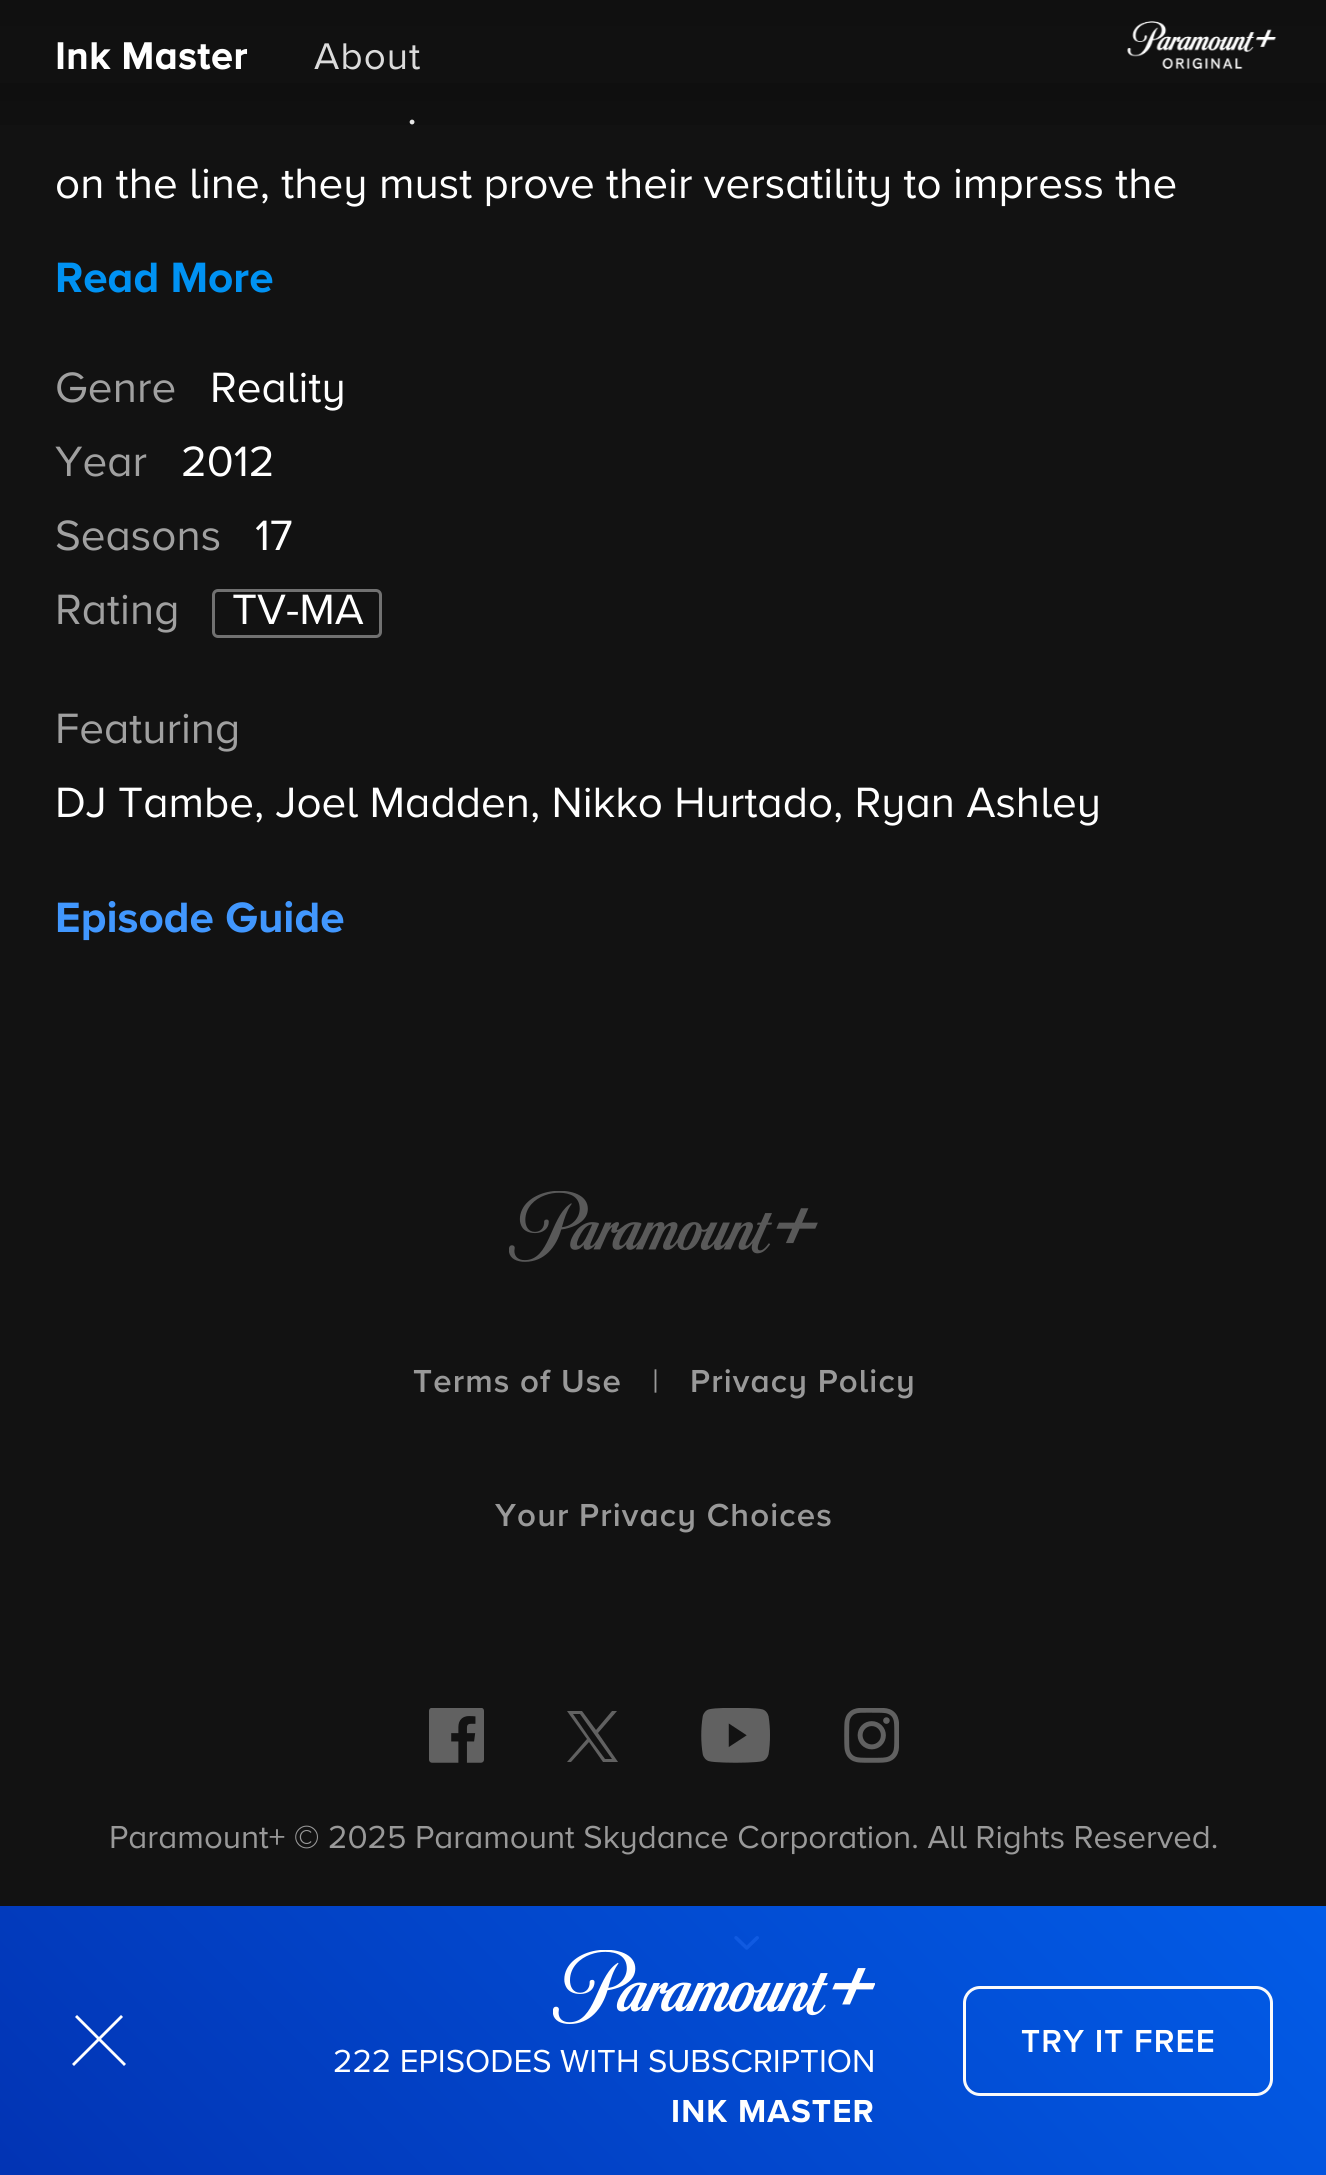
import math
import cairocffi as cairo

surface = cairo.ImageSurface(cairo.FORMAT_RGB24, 1326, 2175)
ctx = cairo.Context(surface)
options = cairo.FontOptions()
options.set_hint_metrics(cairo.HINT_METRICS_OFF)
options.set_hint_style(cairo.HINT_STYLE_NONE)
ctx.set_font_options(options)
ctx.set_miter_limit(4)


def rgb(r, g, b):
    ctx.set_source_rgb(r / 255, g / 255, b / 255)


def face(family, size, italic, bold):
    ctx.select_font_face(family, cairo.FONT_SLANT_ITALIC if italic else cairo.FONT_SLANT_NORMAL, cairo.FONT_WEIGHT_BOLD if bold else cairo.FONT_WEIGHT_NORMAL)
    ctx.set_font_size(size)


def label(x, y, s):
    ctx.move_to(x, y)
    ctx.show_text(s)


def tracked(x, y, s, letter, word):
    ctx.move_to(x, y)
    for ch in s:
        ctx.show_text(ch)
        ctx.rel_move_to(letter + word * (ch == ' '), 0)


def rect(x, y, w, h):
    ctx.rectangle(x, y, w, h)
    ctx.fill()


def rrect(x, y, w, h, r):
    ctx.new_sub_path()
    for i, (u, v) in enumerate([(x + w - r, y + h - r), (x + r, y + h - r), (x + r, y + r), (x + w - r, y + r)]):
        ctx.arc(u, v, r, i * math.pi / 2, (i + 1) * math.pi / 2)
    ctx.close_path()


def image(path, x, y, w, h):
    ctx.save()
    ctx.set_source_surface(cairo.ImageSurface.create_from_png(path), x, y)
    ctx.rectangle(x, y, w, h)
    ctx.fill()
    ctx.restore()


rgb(18, 18, 18)
ctx.paint()
face('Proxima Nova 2', 44, 0, 0)
rgb(255, 255, 255)
label(407, 124, '.')
gradient = cairo.LinearGradient(664, -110, 664, 165)
gradient.add_color_stop_rgba(0, 0, 0, 0, 0.6)
gradient.add_color_stop_rgba(1, 0, 0, 0, 0)
ctx.set_source(gradient)
rect(0, 0, 1326, 125)
ctx.set_source_rgba(0.071, 0.071, 0.071, 0.8)
rect(0, 0, 1326, 83)
face('Proxima Nova', 38.5, 0, 1)
rgb(255, 255, 255)
tracked(55, 69, 'Ink Master', 1.1, 0)
face('Proxima Nova 2', 38.5, 0, 0)
rgb(220, 220, 220)
tracked(314, 69, 'About', 1.1, 0)
image('image0.png', 1127, 21, 150, 48)
face('Proxima Nova 2', 44, 0, 0)
rgb(255, 255, 255)
label(55, 198, 'on the line, they must prove their versatility to impress the')
face('Proxima Nova', 44, 0, 0)
rgb(0, 146, 243)
label(55, 292, 'Read More')
face('Proxima Nova 2', 44, 0, 0)
rgb(160, 160, 160)
label(55, 402, 'Genre')
rgb(255, 255, 255)
label(210, 402, 'Reality')
rgb(160, 160, 160)
label(55, 476, 'Year')
rgb(255, 255, 255)
label(181, 476, '2012')
rgb(160, 160, 160)
label(55, 550, 'Seasons')
rgb(255, 255, 255)
label(255, 550, '17')
rgb(160, 160, 160)
label(55, 624, 'Rating')
rrect(213.5, 590.5, 167, 46, 4.5)
rgb(113, 113, 113)
ctx.set_line_width(3)
ctx.stroke()
rgb(255, 255, 255)
label(232, 624, 'TV-MA')
rgb(160, 160, 160)
label(55, 743, 'Featuring')
rgb(255, 255, 255)
label(55, 817, 'DJ Tambe, Joel Madden, Nikko Hurtado, Ryan Ashley')
face('Proxima Nova', 44, 0, 0)
rgb(65, 151, 254)
label(55, 932, 'Episode Guide')
image('image6.png', 734, 1936, 25, 14)
gradient = cairo.LinearGradient(265, 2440, 1064, 1641)
gradient.add_color_stop_rgba(0, 0, 0.216, 0.773, 0.9)
gradient.add_color_stop_rgba(1, 0, 0.392, 1, 0.9)
ctx.set_source(gradient)
rect(0, 1906, 1326, 269)
rgb(255, 255, 255)
ctx.new_path()
ctx.move_to(121, 2015)
ctx.line_to(123, 2017)
ctx.line_to(74, 2066)
ctx.line_to(72, 2064)
ctx.close_path()
ctx.fill()
ctx.new_path()
ctx.move_to(75, 2017)
ctx.line_to(77, 2015)
ctx.line_to(126, 2064)
ctx.line_to(124, 2066)
ctx.close_path()
ctx.fill()
rrect(964.5, 1987.5, 307, 107, 15.5)
rgb(250, 250, 250)
ctx.stroke()
face('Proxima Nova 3', 33, 0, 0)
rgb(255, 255, 255)
tracked(1021, 2052, 'TRY IT FREE', 1.1, 0)
image('image1.png', 553, 1950, 322, 74)
face('Proxima Nova 2', 33, 0, 0)
label(333, 2072, '222 EPISODES WITH SUBSCRIPTION')
face('Proxima Nova', 33, 0, 0)
tracked(671, 2122, 'INK MASTER', 1.1, 0)
image('image2.png', 509, 1191, 309, 71)
face('Proxima Nova 3', 33, 0, 0)
rgb(153, 153, 153)
tracked(413, 1392, 'Terms of Use', 1.1, 0)
face('Proxima Nova 2', 33, 0, 0)
label(652, 1392, '|')
face('Proxima Nova 3', 33, 0, 0)
tracked(690, 1392, 'Privacy Policy', 1.1, 0)
tracked(495, 1526, 'Your Privacy Choices', 1.1, 0)
image('image3.png', 429, 1708, 55, 55)
rgb(97, 97, 97)
ctx.new_path()
ctx.move_to(598, 1733)
ctx.line_to(617, 1711)
ctx.line_to(612, 1711)
ctx.line_to(596, 1730)
ctx.line_to(582, 1711)
ctx.line_to(567, 1711)
ctx.line_to(587, 1739)
ctx.line_to(567, 1762)
ctx.line_to(571, 1762)
ctx.line_to(589, 1742)
ctx.line_to(603, 1762)
ctx.line_to(618, 1762)
ctx.close_path()
ctx.move_to(591, 1740)
ctx.line_to(573, 1714)
ctx.line_to(580, 1714)
ctx.line_to(612, 1759)
ctx.line_to(605, 1759)
ctx.close_path()
ctx.fill()
image('image4.png', 701, 1708, 69, 55)
image('image5.png', 844, 1708, 55, 55)
face('Proxima Nova 2', 33, 0, 0)
rgb(153, 153, 153)
label(109, 1848, 'Paramount+ © 2025 Paramount Skydance Corporation. All Rights Reserved.')
surface.write_to_png('render.png')
